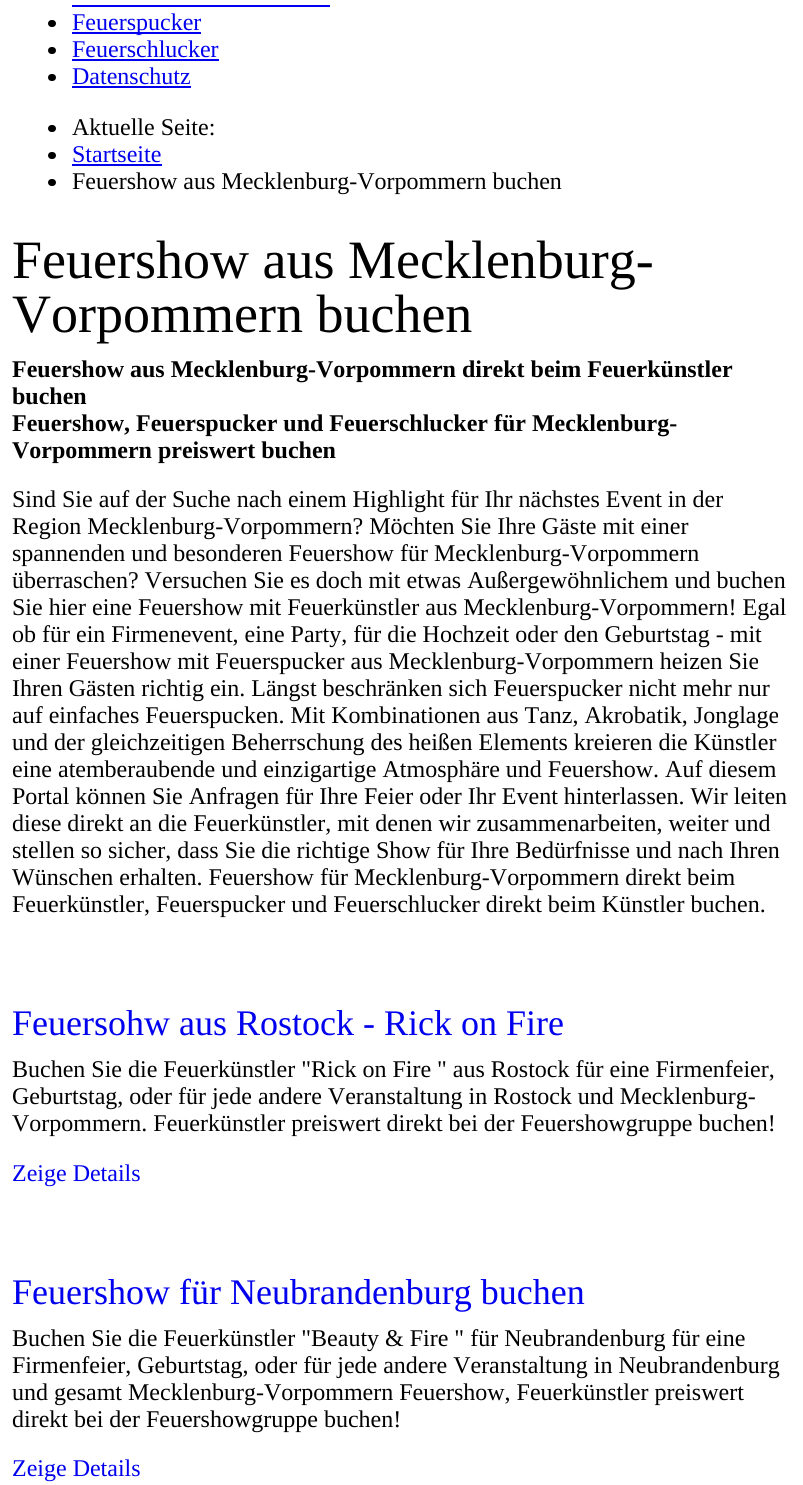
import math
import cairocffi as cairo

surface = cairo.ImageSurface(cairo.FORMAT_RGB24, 803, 1485)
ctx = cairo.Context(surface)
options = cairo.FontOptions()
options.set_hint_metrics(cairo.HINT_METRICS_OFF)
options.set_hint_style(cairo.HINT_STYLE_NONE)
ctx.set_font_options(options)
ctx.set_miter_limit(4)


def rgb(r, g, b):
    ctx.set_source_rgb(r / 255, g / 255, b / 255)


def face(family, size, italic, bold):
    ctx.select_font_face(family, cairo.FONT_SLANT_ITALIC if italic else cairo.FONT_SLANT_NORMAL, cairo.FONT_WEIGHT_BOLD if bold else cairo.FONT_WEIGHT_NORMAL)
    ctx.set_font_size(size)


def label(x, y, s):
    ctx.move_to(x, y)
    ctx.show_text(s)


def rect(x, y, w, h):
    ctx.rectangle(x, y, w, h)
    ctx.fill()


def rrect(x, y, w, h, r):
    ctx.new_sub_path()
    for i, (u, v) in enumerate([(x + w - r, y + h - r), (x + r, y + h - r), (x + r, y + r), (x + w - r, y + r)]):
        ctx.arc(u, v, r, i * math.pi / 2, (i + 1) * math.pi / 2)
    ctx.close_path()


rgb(255, 255, 255)
ctx.paint()
rgb(0, 0, 238)
rect(72, 5, 258, 2)
rgb(0, 0, 0)
rrect(48, 20, 8, 7, 3.5)
ctx.fill()
rgb(0, 0, 238)
rect(72, 32, 129, 2)
face('Liberation Serif', 24, 0, 0)
label(72, 30, 'Feuerspucker')
rgb(0, 0, 0)
rrect(48, 47, 8, 7, 3.5)
ctx.fill()
rgb(0, 0, 238)
label(72, 57, 'Feuerschlucker')
rect(72, 59, 147, 2)
rgb(0, 0, 0)
rrect(48, 74, 8, 7, 3.5)
ctx.fill()
rgb(0, 0, 238)
label(72, 84, 'Datenschutz')
rect(72, 86, 119, 2)
rgb(0, 0, 0)
rrect(48, 125, 8, 7, 3.5)
ctx.fill()
label(72, 135, 'Aktuelle Seite:')
rrect(48, 152, 8, 7, 3.5)
ctx.fill()
rgb(0, 0, 238)
label(72, 162, 'Startseite')
rect(72, 164, 90, 2)
rgb(0, 0, 0)
rrect(48, 179, 8, 7, 3.5)
ctx.fill()
label(72, 189, 'Feuershow aus Mecklenburg-Vorpommern buchen')
face('Liberation Serif', 54, 0, 0)
label(12, 278, 'Feuershow aus Mecklenburg-')
label(12, 332, 'Vorpommern buchen')
face('Liberation Serif', 24, 0, 1)
label(12, 377, 'Feuershow aus Mecklenburg-Vorpommern direkt beim Feuerkünstler')
label(12, 404, 'buchen')
label(12, 431, 'Feuershow, Feuerspucker und Feuerschlucker für Mecklenburg-')
label(12, 458, 'Vorpommern preiswert buchen')
face('Liberation Serif', 24, 0, 0)
label(12, 507, 'Sind Sie auf der Suche nach einem Highlight für Ihr nächstes Event in der')
label(12, 534, 'Region Mecklenburg-Vorpommern? Möchten Sie Ihre Gäste mit einer')
label(12, 561, 'spannenden und besonderen Feuershow für Mecklenburg-Vorpommern')
label(12, 588, 'überraschen? Versuchen Sie es doch mit etwas Außergewöhnlichem und buchen')
label(12, 615, 'Sie hier eine Feuershow mit Feuerkünstler aus Mecklenburg-Vorpommern! Egal')
label(12, 642, 'ob für ein Firmenevent, eine Party, für die Hochzeit oder den Geburtstag - mit')
label(12, 669, 'einer Feuershow mit Feuerspucker aus Mecklenburg-Vorpommern heizen Sie')
label(12, 696, 'Ihren Gästen richtig ein. Längst beschränken sich Feuerspucker nicht mehr nur')
label(12, 723, 'auf einfaches Feuerspucken. Mit Kombinationen aus Tanz, Akrobatik, Jonglage')
label(12, 750, 'und der gleichzeitigen Beherrschung des heißen Elements kreieren die Künstler')
label(12, 777, 'eine atemberaubende und einzigartige Atmosphäre und Feuershow. Auf diesem')
label(12, 804, 'Portal können Sie Anfragen für Ihre Feier oder Ihr Event hinterlassen. Wir leiten')
label(12, 831, 'diese direkt an die Feuerkünstler, mit denen wir zusammenarbeiten, weiter und')
label(12, 858, 'stellen so sicher, dass Sie die richtige Show für Ihre Bedürfnisse und nach Ihren')
label(12, 885, 'Wünschen erhalten. Feuershow für Mecklenburg-Vorpommern direkt beim')
label(12, 912, 'Feuerkünstler, Feuerspucker und Feuerschlucker direkt beim Künstler buchen.')
face('Liberation Serif', 36, 0, 0)
rgb(0, 0, 238)
label(12, 1035, 'Feuersohw aus Rostock - Rick on Fire')
face('Liberation Serif', 24, 0, 0)
rgb(0, 0, 0)
label(12, 1077, 'Buchen Sie die Feuerkünstler "Rick on Fire " aus Rostock für eine Firmenfeier,')
label(12, 1104, 'Geburtstag, oder für jede andere Veranstaltung in Rostock und Mecklenburg-')
label(12, 1131, 'Vorpommern. Feuerkünstler preiswert direkt bei der Feuershowgruppe buchen!')
rgb(0, 0, 238)
label(12, 1181, 'Zeige Details')
face('Liberation Serif', 36, 0, 0)
label(12, 1304, 'Feuershow für Neubrandenburg buchen')
face('Liberation Serif', 24, 0, 0)
rgb(0, 0, 0)
label(12, 1346, 'Buchen Sie die Feuerkünstler "Beauty & Fire " für Neubrandenburg für eine')
label(12, 1373, 'Firmenfeier, Geburtstag, oder für jede andere Veranstaltung in Neubrandenburg')
label(12, 1400, 'und gesamt Mecklenburg-Vorpommern Feuershow, Feuerkünstler preiswert')
label(12, 1427, 'direkt bei der Feuershowgruppe buchen!')
rgb(0, 0, 238)
label(12, 1476, 'Zeige Details')
surface.write_to_png('render.png')
